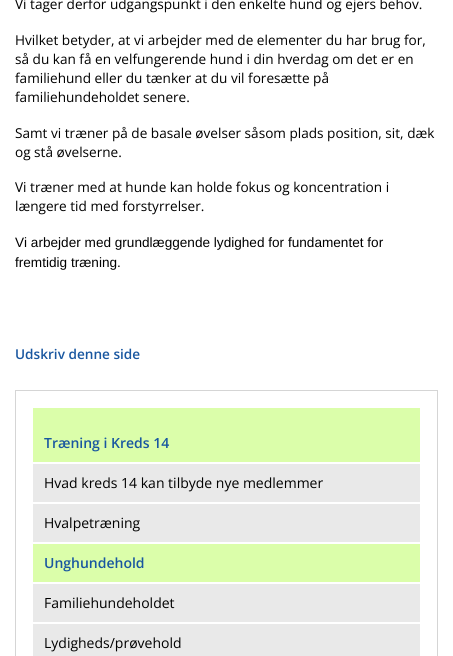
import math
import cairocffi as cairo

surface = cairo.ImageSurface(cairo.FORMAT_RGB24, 453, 656)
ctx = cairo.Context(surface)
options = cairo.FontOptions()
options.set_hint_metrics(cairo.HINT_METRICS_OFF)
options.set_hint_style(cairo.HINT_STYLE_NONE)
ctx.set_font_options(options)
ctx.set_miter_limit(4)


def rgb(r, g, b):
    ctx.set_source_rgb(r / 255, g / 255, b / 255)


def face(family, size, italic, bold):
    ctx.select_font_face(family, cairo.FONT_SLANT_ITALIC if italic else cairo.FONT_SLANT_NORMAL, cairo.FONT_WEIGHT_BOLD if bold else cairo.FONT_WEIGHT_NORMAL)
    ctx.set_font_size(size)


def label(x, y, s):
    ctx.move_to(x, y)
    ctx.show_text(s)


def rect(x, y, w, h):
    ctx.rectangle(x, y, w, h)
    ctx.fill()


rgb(255, 255, 255)
ctx.paint()
face('Open Sans', 13.6, 0, 0)
rgb(0, 0, 0)
label(15, 9, 'Vi tager derfor udgangspunkt i den enkelte hund og ejers behov.')
label(15, 45, 'Hvilket betyder, at vi arbejder med de elementer du har brug for,')
label(15, 64, 'så du kan få en velfungerende hund i din hverdag om det er en')
label(15, 83, 'familiehund eller du tænker at du vil foresætte på')
label(15, 102, 'familiehundeholdet senere.')
label(15, 138, 'Samt vi træner på de basale øvelser såsom plads position, sit, dæk')
label(15, 157, 'og stå øvelserne.')
label(15, 192, 'Vi træner med at hunde kan holde fokus og koncentration i')
label(15, 211, 'længere tid med forstyrrelser.')
face('Liberation Sans', 13.6, 0, 0)
label(15, 247, 'Vi arbejder med grundlæggende lydighed for fundamentet for')
label(15, 267, 'fremtidig træning.')
face('Open Sans SemiBold', 13.6, 0, 0)
rgb(25, 87, 160)
label(15, 359, 'Udskriv denne side')
ctx.rectangle(15.5, 390.5, 422, 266)
rgb(213, 213, 213)
ctx.set_line_width(1)
ctx.stroke()
rgb(219, 254, 170)
rect(33, 408, 387, 54)
face('Open Sans SemiBold', 14, 0, 0)
rgb(25, 87, 160)
label(44, 448, 'Træning i Kreds 14')
rgb(233, 233, 233)
rect(33, 464, 387, 38)
face('Open Sans', 14, 0, 0)
rgb(0, 0, 0)
label(44, 488, 'Hvad kreds 14 kan tilbyde nye medlemmer')
rgb(233, 233, 233)
rect(33, 504, 387, 38)
rgb(0, 0, 0)
label(44, 528, 'Hvalpetræning')
rgb(219, 254, 170)
rect(33, 544, 387, 38)
face('Open Sans SemiBold', 14, 0, 0)
rgb(25, 87, 160)
label(44, 568, 'Unghundehold')
rgb(233, 233, 233)
rect(33, 584, 387, 38)
face('Open Sans', 14, 0, 0)
rgb(0, 0, 0)
label(44, 608, 'Familiehundeholdet')
rgb(233, 233, 233)
rect(33, 624, 387, 32)
rgb(0, 0, 0)
label(44, 648, 'Lydigheds/prøvehold')
surface.write_to_png('render.png')
